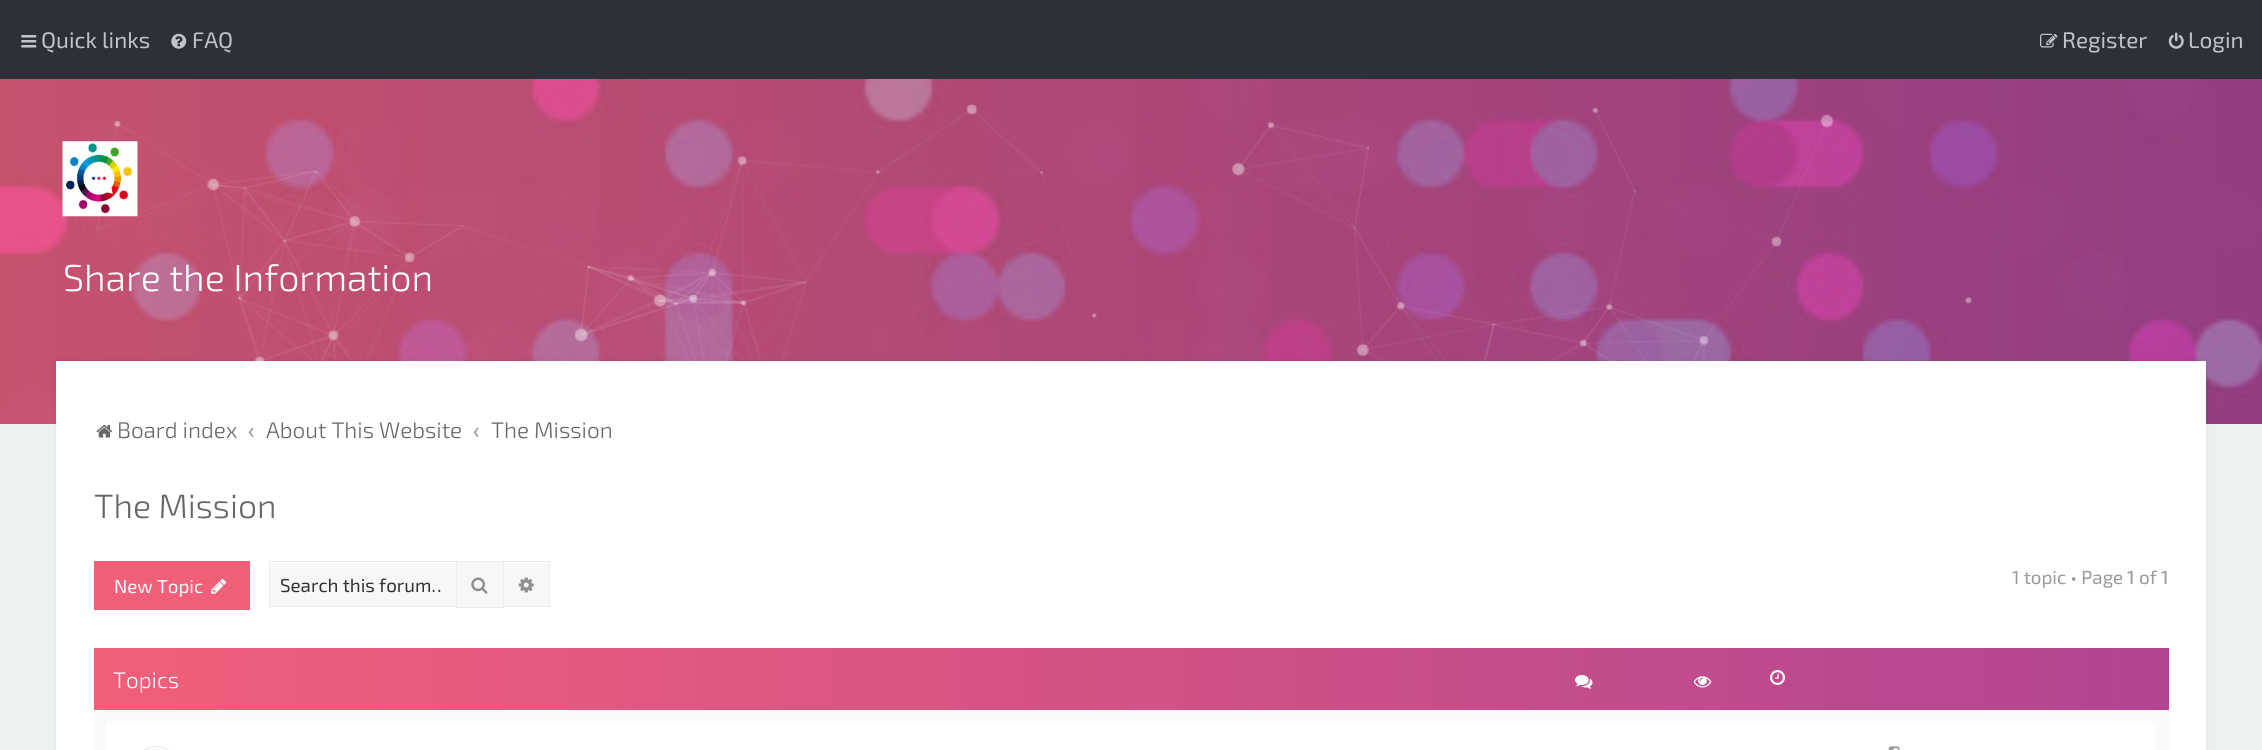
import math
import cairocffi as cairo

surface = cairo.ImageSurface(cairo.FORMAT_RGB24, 2262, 750)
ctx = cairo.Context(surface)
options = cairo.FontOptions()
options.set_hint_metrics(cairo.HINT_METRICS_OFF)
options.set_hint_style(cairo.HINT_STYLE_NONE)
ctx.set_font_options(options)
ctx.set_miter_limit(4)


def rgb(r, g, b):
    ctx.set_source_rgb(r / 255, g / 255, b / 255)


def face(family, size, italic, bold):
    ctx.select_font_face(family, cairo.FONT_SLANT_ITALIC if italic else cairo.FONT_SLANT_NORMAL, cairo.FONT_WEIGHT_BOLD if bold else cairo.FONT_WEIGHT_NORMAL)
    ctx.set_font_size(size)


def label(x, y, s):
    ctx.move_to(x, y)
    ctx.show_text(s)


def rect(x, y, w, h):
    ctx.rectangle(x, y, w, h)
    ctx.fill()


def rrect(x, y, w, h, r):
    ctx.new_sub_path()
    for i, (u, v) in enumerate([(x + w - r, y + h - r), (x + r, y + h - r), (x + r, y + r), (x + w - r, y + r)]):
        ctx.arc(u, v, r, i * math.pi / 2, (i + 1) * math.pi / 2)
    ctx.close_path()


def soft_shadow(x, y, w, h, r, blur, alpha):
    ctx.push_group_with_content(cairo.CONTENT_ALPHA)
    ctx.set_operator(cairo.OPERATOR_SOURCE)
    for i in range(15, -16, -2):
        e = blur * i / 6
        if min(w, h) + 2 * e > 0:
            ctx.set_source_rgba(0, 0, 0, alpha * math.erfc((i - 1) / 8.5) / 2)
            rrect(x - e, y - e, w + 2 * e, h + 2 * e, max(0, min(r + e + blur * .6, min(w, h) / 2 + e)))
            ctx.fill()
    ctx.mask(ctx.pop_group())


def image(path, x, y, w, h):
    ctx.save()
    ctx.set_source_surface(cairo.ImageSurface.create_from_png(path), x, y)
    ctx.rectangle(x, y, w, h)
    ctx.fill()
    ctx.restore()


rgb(236, 240, 241)
ctx.paint()
rgb(45, 48, 57)
rect(0, 0, 2262, 79)
image('image0.png', 21, 35, 16, 13)
face('Exo 2', 22.5, 0, 0)
rgb(190, 196, 201)
label(41, 48, 'Quick links')
image('image1.png', 171, 33, 16, 16)
label(192, 48, 'FAQ')
image('image2.png', 2040, 33, 18, 15)
label(2062, 48, 'Register')
image('image3.png', 2168, 32, 16, 17)
label(2188, 48, 'Login')
image('image14.png', 0, 79, 2262, 345)
image('image4.png', 96, 104, 1876, 257)
image('image5.png', 62, 141, 76, 76)
face('Exo 2 Light', 37.5, 0, 0)
rgb(255, 255, 255)
label(63, 291, 'Share the Information')
rgb(0, 0, 0)
soft_shadow(56, 361, 2150, 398, 0, 3, 0.05)
rgb(255, 255, 255)
rect(56, 361, 2150, 389)
image('image6.png', 96, 425, 17, 13)
face('Exo 2 Light', 22.5, 0, 0)
rgb(103, 103, 103)
label(117, 438, 'Board index')
face('Exo 2 Medium', 22.5, 0, 0)
rgb(153, 153, 153)
label(248, 438, '‹')
face('Exo 2 Light', 22.5, 0, 0)
rgb(103, 103, 103)
label(266, 438, 'About This Website')
face('Exo 2 Medium', 22.5, 0, 0)
rgb(153, 153, 153)
label(473, 438, '‹')
face('Exo 2 Light', 22.5, 0, 0)
rgb(103, 103, 103)
label(491, 438, 'The Mission')
face('Exo 2 Light', 33.75, 0, 0)
label(94, 518, 'The Mission')
rgb(241, 95, 121)
rect(94, 561, 156, 49)
face('Exo 2', 18.75, 0, 0)
rgb(255, 255, 255)
label(114, 593, 'New Topic')
image('image7.png', 211, 579, 15, 15)
rgb(247, 247, 247)
rect(270, 563, 186, 43)
rgb(237, 236, 236)
rect(269, 561, 187, 1)
rect(269, 606, 187, 1)
rect(269, 561, 1, 47)
ctx.save()
ctx.rectangle(280, 574, 161, 22)
ctx.clip()
rgb(51, 51, 51)
label(280, 592, 'Search this forum…')
ctx.restore()
rgb(247, 247, 247)
ctx.rectangle(456.5, 561.5, 47, 46)
ctx.fill_preserve()
rgb(237, 236, 236)
ctx.set_line_width(1)
ctx.stroke()
image('image8.png', 471, 577, 17, 17)
rgb(247, 247, 247)
rect(504, 563, 45, 43)
rgb(237, 236, 236)
rect(504, 561, 46, 1)
rect(549, 561, 1, 47)
rect(504, 606, 46, 1)
image('image9.png', 518, 577, 16, 16)
rgb(153, 153, 153)
label(2012, 584, '1 topic • Page')
face('Exo 2 Medium', 18.75, 0, 0)
label(2127, 584, '1')
face('Exo 2', 18.75, 0, 0)
label(2139, 584, 'of')
face('Exo 2 Medium', 18.75, 0, 0)
label(2161, 584, '1')
rgb(250, 250, 250)
rect(94, 710, 2075, 40)
gradient = cairo.LinearGradient(94, 679, 2169, 679)
gradient.add_color_stop_rgba(0, 0.945, 0.373, 0.475, 1)
gradient.add_color_stop_rgba(1, 0.698, 0.271, 0.573, 1)
ctx.set_source(gradient)
rect(94, 648, 2075, 62)
face('Exo 2 Light', 22.5, 0, 0)
rgb(255, 255, 255)
label(113, 688, 'Topics')
image('image10.png', 1575, 675, 18, 14)
image('image11.png', 1693, 676, 19, 12)
image('image12.png', 1770, 670, 15, 15)
rect(106, 723, 2050, 27)
rrect(135.5, 746.5, 42, 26, 21)
rgb(230, 230, 230)
ctx.stroke()
image('image13.png', 1888, 746, 12, 4)
surface.write_to_png('render.png')
